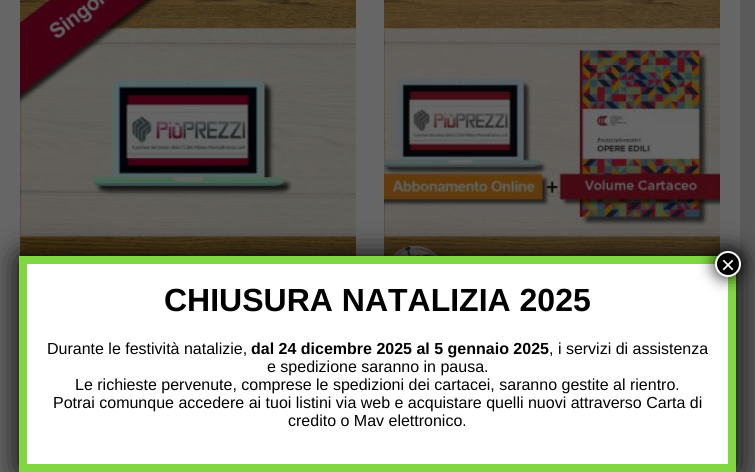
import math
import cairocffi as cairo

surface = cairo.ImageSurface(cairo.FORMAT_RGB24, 755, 472)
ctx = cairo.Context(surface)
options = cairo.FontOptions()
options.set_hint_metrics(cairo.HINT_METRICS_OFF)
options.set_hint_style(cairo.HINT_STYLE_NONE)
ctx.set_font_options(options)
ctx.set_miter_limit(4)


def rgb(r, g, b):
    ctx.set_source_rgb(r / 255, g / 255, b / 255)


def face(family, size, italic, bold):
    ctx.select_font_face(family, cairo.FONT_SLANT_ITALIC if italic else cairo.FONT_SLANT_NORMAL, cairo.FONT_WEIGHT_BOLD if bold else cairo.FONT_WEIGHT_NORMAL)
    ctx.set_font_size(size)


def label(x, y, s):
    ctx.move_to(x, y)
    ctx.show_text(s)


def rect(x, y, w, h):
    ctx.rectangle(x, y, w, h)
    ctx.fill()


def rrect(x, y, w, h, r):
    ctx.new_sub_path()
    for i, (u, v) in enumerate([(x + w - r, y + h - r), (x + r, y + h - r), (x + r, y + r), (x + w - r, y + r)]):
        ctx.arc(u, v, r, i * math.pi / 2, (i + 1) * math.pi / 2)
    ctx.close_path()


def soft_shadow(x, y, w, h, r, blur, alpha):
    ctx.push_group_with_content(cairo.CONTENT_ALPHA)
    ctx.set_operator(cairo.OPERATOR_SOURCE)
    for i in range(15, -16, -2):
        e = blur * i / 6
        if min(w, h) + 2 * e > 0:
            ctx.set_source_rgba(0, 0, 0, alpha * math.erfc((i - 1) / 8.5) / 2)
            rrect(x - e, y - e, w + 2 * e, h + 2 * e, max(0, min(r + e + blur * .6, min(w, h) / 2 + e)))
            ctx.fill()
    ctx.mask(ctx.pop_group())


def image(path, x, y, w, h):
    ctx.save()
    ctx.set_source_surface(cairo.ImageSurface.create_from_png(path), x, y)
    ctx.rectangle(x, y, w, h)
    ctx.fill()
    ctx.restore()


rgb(90, 90, 90)
ctx.paint()
rgb(102, 102, 102)
rect(0, 0, 740, 472)
image('image0.png', 20, 0, 336, 256)
image('image1.png', 384, 0, 336, 256)
ctx.save()
ctx.set_fill_rule(cairo.FILL_RULE_EVEN_ODD)
ctx.new_path()
ctx.move_to(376, 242)
ctx.line_to(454, 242)
ctx.line_to(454, 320)
ctx.line_to(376, 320)
ctx.close_path()
ctx.move_to(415, 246)
ctx.curve_to(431.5, 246, 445, 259.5, 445, 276)
ctx.curve_to(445, 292.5, 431.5, 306, 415, 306)
ctx.curve_to(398.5, 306, 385, 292.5, 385, 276)
ctx.curve_to(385, 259.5, 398.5, 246, 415, 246)
ctx.close_path()
ctx.clip()
rgb(85, 85, 85)
soft_shadow(385, 251, 60, 60, 30, 2.5, 0.9)
ctx.restore()
ctx.set_source_rgba(0.4, 0.4, 0.4, 0.9)
ctx.arc(415, 276, 30, 0, 2 * math.pi)
ctx.fill()
image('image2.png', 394, 246, 42, 10)
rgb(2, 2, 2)
soft_shadow(19, 256, 717, 216, 3, 15, 1)
rgb(255, 255, 255)
rect(27, 264, 701, 200)
ctx.new_path()
ctx.move_to(23, 260)
ctx.line_to(732, 260)
ctx.line_to(732, 468)
ctx.line_to(23, 468)
ctx.close_path()
rgb(129, 215, 66)
ctx.set_line_width(8)
ctx.stroke()
rgb(2, 2, 2)
soft_shadow(714, 250, 28, 28, 14, 7.5, 0.75)
rgb(0, 0, 0)
ctx.arc(728, 264, 12, 0, 2 * math.pi)
ctx.fill_preserve()
rgb(255, 255, 255)
ctx.set_line_width(2)
ctx.stroke()
face('Liberation Sans', 24, 0, 0)
label(721, 273, '×')
face('Liberation Sans', 32, 0, 1)
rgb(0, 0, 0)
label(164, 311, 'CHIUSURA NATALIZIA 2025')
face('Liberation Sans', 16, 0, 0)
label(47, 354, 'Durante le festività natalizie,')
face('Liberation Sans', 16, 0, 1)
label(251, 354, 'dal 24 dicembre 2025 al 5 gennaio 2025')
face('Liberation Sans', 16, 0, 0)
label(549, 354, ', i servizi di assistenza')
label(267, 372, 'e spedizione saranno in pausa.')
label(75, 390, 'Le richieste pervenute, comprese le spedizioni dei cartacei, saranno gestite al rientro.')
label(53, 408, 'Potrai comunque accedere ai tuoi listini via web e acquistare quelli nuovi attraverso Carta di')
label(288, 426, 'credito o Mav elettronico.')
surface.write_to_png('render.png')
